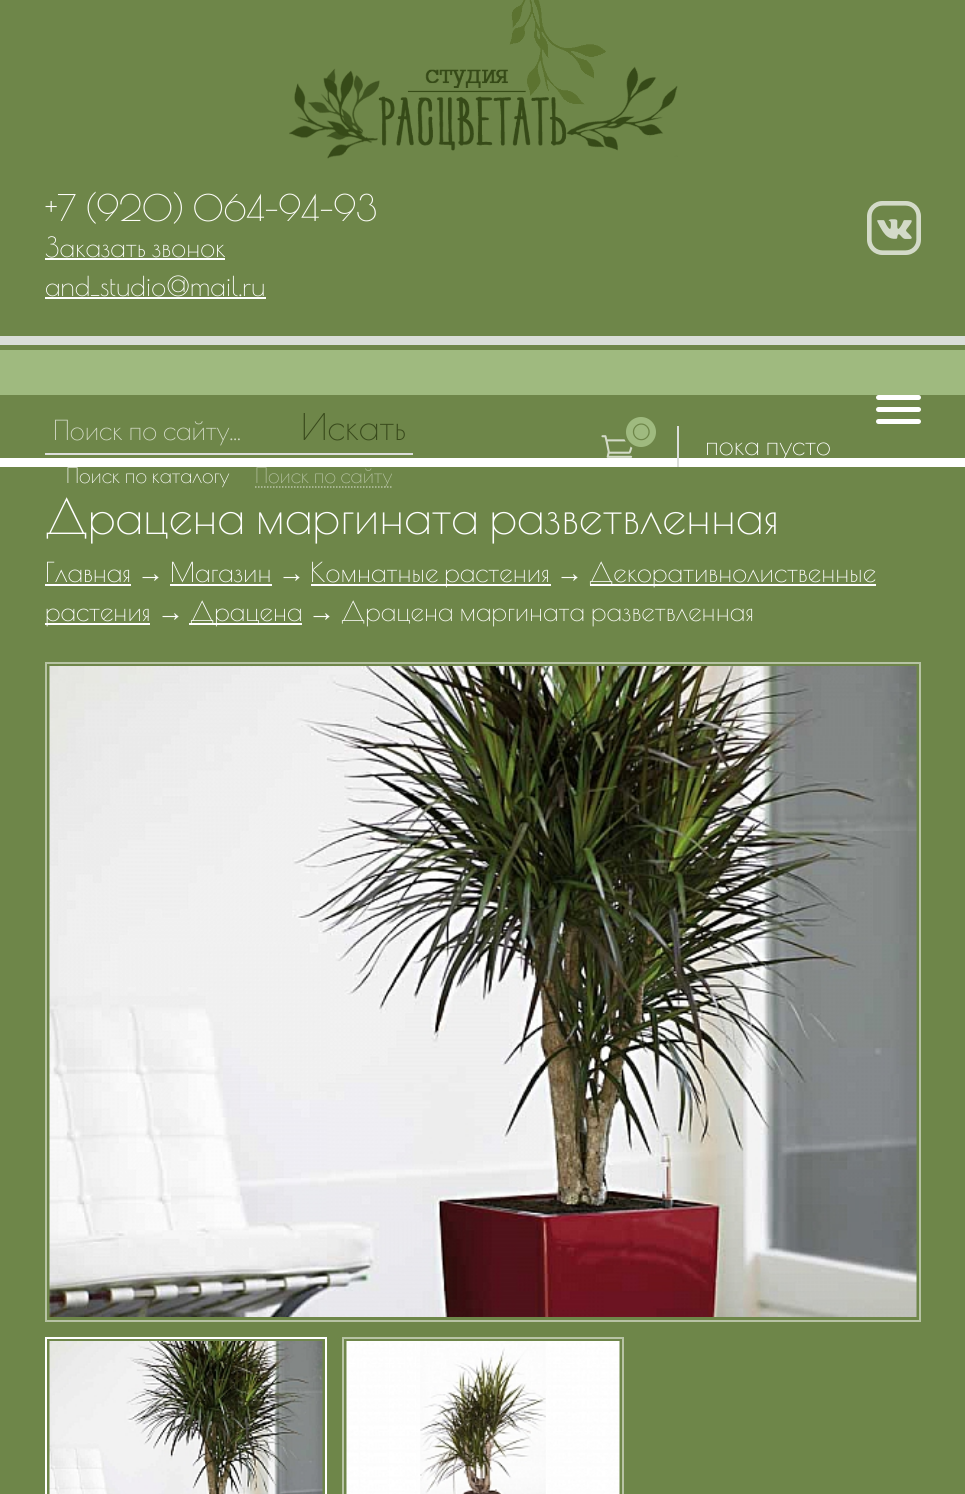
import math
import cairocffi as cairo

surface = cairo.ImageSurface(cairo.FORMAT_RGB24, 965, 1494)
ctx = cairo.Context(surface)
options = cairo.FontOptions()
options.set_hint_metrics(cairo.HINT_METRICS_OFF)
options.set_hint_style(cairo.HINT_STYLE_NONE)
ctx.set_font_options(options)
ctx.set_miter_limit(4)


def rgb(r, g, b):
    ctx.set_source_rgb(r / 255, g / 255, b / 255)


def face(family, size, italic, bold):
    ctx.select_font_face(family, cairo.FONT_SLANT_ITALIC if italic else cairo.FONT_SLANT_NORMAL, cairo.FONT_WEIGHT_BOLD if bold else cairo.FONT_WEIGHT_NORMAL)
    ctx.set_font_size(size)


def label(x, y, s):
    ctx.move_to(x, y)
    ctx.show_text(s)


def rect(x, y, w, h):
    ctx.rectangle(x, y, w, h)
    ctx.fill()


def rrect(x, y, w, h, r):
    ctx.new_sub_path()
    for i, (u, v) in enumerate([(x + w - r, y + h - r), (x + r, y + h - r), (x + r, y + r), (x + w - r, y + r)]):
        ctx.arc(u, v, r, i * math.pi / 2, (i + 1) * math.pi / 2)
    ctx.close_path()


def image(path, x, y, w, h):
    ctx.save()
    ctx.set_source_surface(cairo.ImageSurface.create_from_png(path), x, y)
    ctx.rectangle(x, y, w, h)
    ctx.fill()
    ctx.restore()


rgb(110, 134, 73)
ctx.paint()
image('image0.png', 289, 0, 389, 159)
face('Poiret One', 36, 0, 0)
rgb(253, 253, 249)
label(45, 221, '+7 (920) 064-94-93')
face('Poiret One', 27, 0, 0)
rgb(255, 255, 255)
label(45, 257, 'Заказать звонок')
rect(45, 258, 180, 2)
label(45, 296, 'and_studio@mail.ru')
rect(45, 297, 221, 2)
image('image1.png', 867, 201, 54, 54)
rgb(220, 222, 219)
rect(45, 453, 368, 2)
rgb(212, 219, 200)
label(53, 440, 'Поиск по сайту...')
face('Poiret One', 36, 0, 0)
rgb(57, 74, 28)
label(301, 440, 'Искать')
face('Poiret One', 21, 0, 0)
rgb(255, 255, 255)
label(66, 483, 'Поиск по каталогу')
ctx.new_path()
ctx.move_to(255, 487)
ctx.line_to(391.5, 487)
rgb(183, 195, 164)
ctx.set_line_width(1.5)
ctx.set_dash([1.5, 1.5])
ctx.stroke()
label(255, 483, 'Поиск по сайту')
image('image2.png', 601, 435, 32, 23)
rgb(159, 186, 127)
ctx.arc(641, 432, 16.5, 0, 2 * math.pi)
ctx.fill_preserve()
rgb(110, 134, 73)
ctx.set_line_width(3)
ctx.set_dash([])
ctx.stroke()
face('Poiret One', 21, 0, 1)
label(632, 440, '0')
rgb(255, 255, 255)
rect(0, 458, 965, 9)
rgb(220, 222, 219)
rect(677, 426, 2, 41)
face('Poiret One', 27, 0, 0)
rgb(255, 255, 255)
label(705, 455, 'пока пусто')
rgb(218, 222, 216)
rect(0, 336, 965, 9)
rgb(159, 186, 127)
rect(0, 350, 965, 45)
rgb(255, 255, 255)
rrect(876, 395, 45, 5, 2.5)
ctx.fill()
rrect(876, 407, 45, 5, 2.5)
ctx.fill()
rrect(876, 419, 45, 5, 2.5)
ctx.fill()
face('Poiret One', 48, 0, 0)
label(45, 534, 'Драцена маргината разветвленная')
face('Poiret One', 27, 0, 0)
label(45, 582, 'Главная')
rect(45, 584, 86, 2)
face('Liberation Serif', 27, 0, 0)
rgb(253, 253, 249)
label(137, 582, '→')
face('Poiret One', 27, 0, 0)
rgb(255, 255, 255)
label(170, 582, 'Магазин')
rect(170, 584, 102, 2)
face('Liberation Serif', 27, 0, 0)
rgb(253, 253, 249)
label(278, 582, '→')
rgb(255, 255, 255)
rect(311, 584, 240, 2)
face('Poiret One', 27, 0, 0)
label(310, 582, 'Комнатные растения')
face('Liberation Serif', 27, 0, 0)
rgb(253, 253, 249)
label(556, 582, '→')
rgb(255, 255, 255)
rect(590, 584, 286, 2)
face('Poiret One', 27, 0, 0)
label(589, 582, 'Декоративнолиственные')
rect(45, 623, 105, 2)
label(45, 621, 'растения')
face('Liberation Serif', 27, 0, 0)
rgb(253, 253, 249)
label(157, 621, '→')
rgb(255, 255, 255)
rect(189, 623, 113, 2)
face('Poiret One', 27, 0, 0)
label(190, 621, 'Драцена')
face('Liberation Serif', 27, 0, 0)
rgb(253, 253, 249)
label(308, 621, '→')
face('Poiret One', 27, 0, 0)
label(341, 621, 'Драцена маргината разветвленная')
ctx.rectangle(46, 663, 874, 658)
rgb(183, 195, 164)
ctx.set_line_width(2)
ctx.stroke()
image('image3.png', 49, 666, 868, 651)
ctx.rectangle(46, 1338, 280, 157)
rgb(255, 255, 255)
ctx.stroke()
image('image4.png', 49, 1341, 274, 153)
ctx.rectangle(343, 1338, 280, 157)
rgb(183, 195, 164)
ctx.stroke()
image('image5.png', 346, 1341, 274, 153)
surface.write_to_png('render.png')
